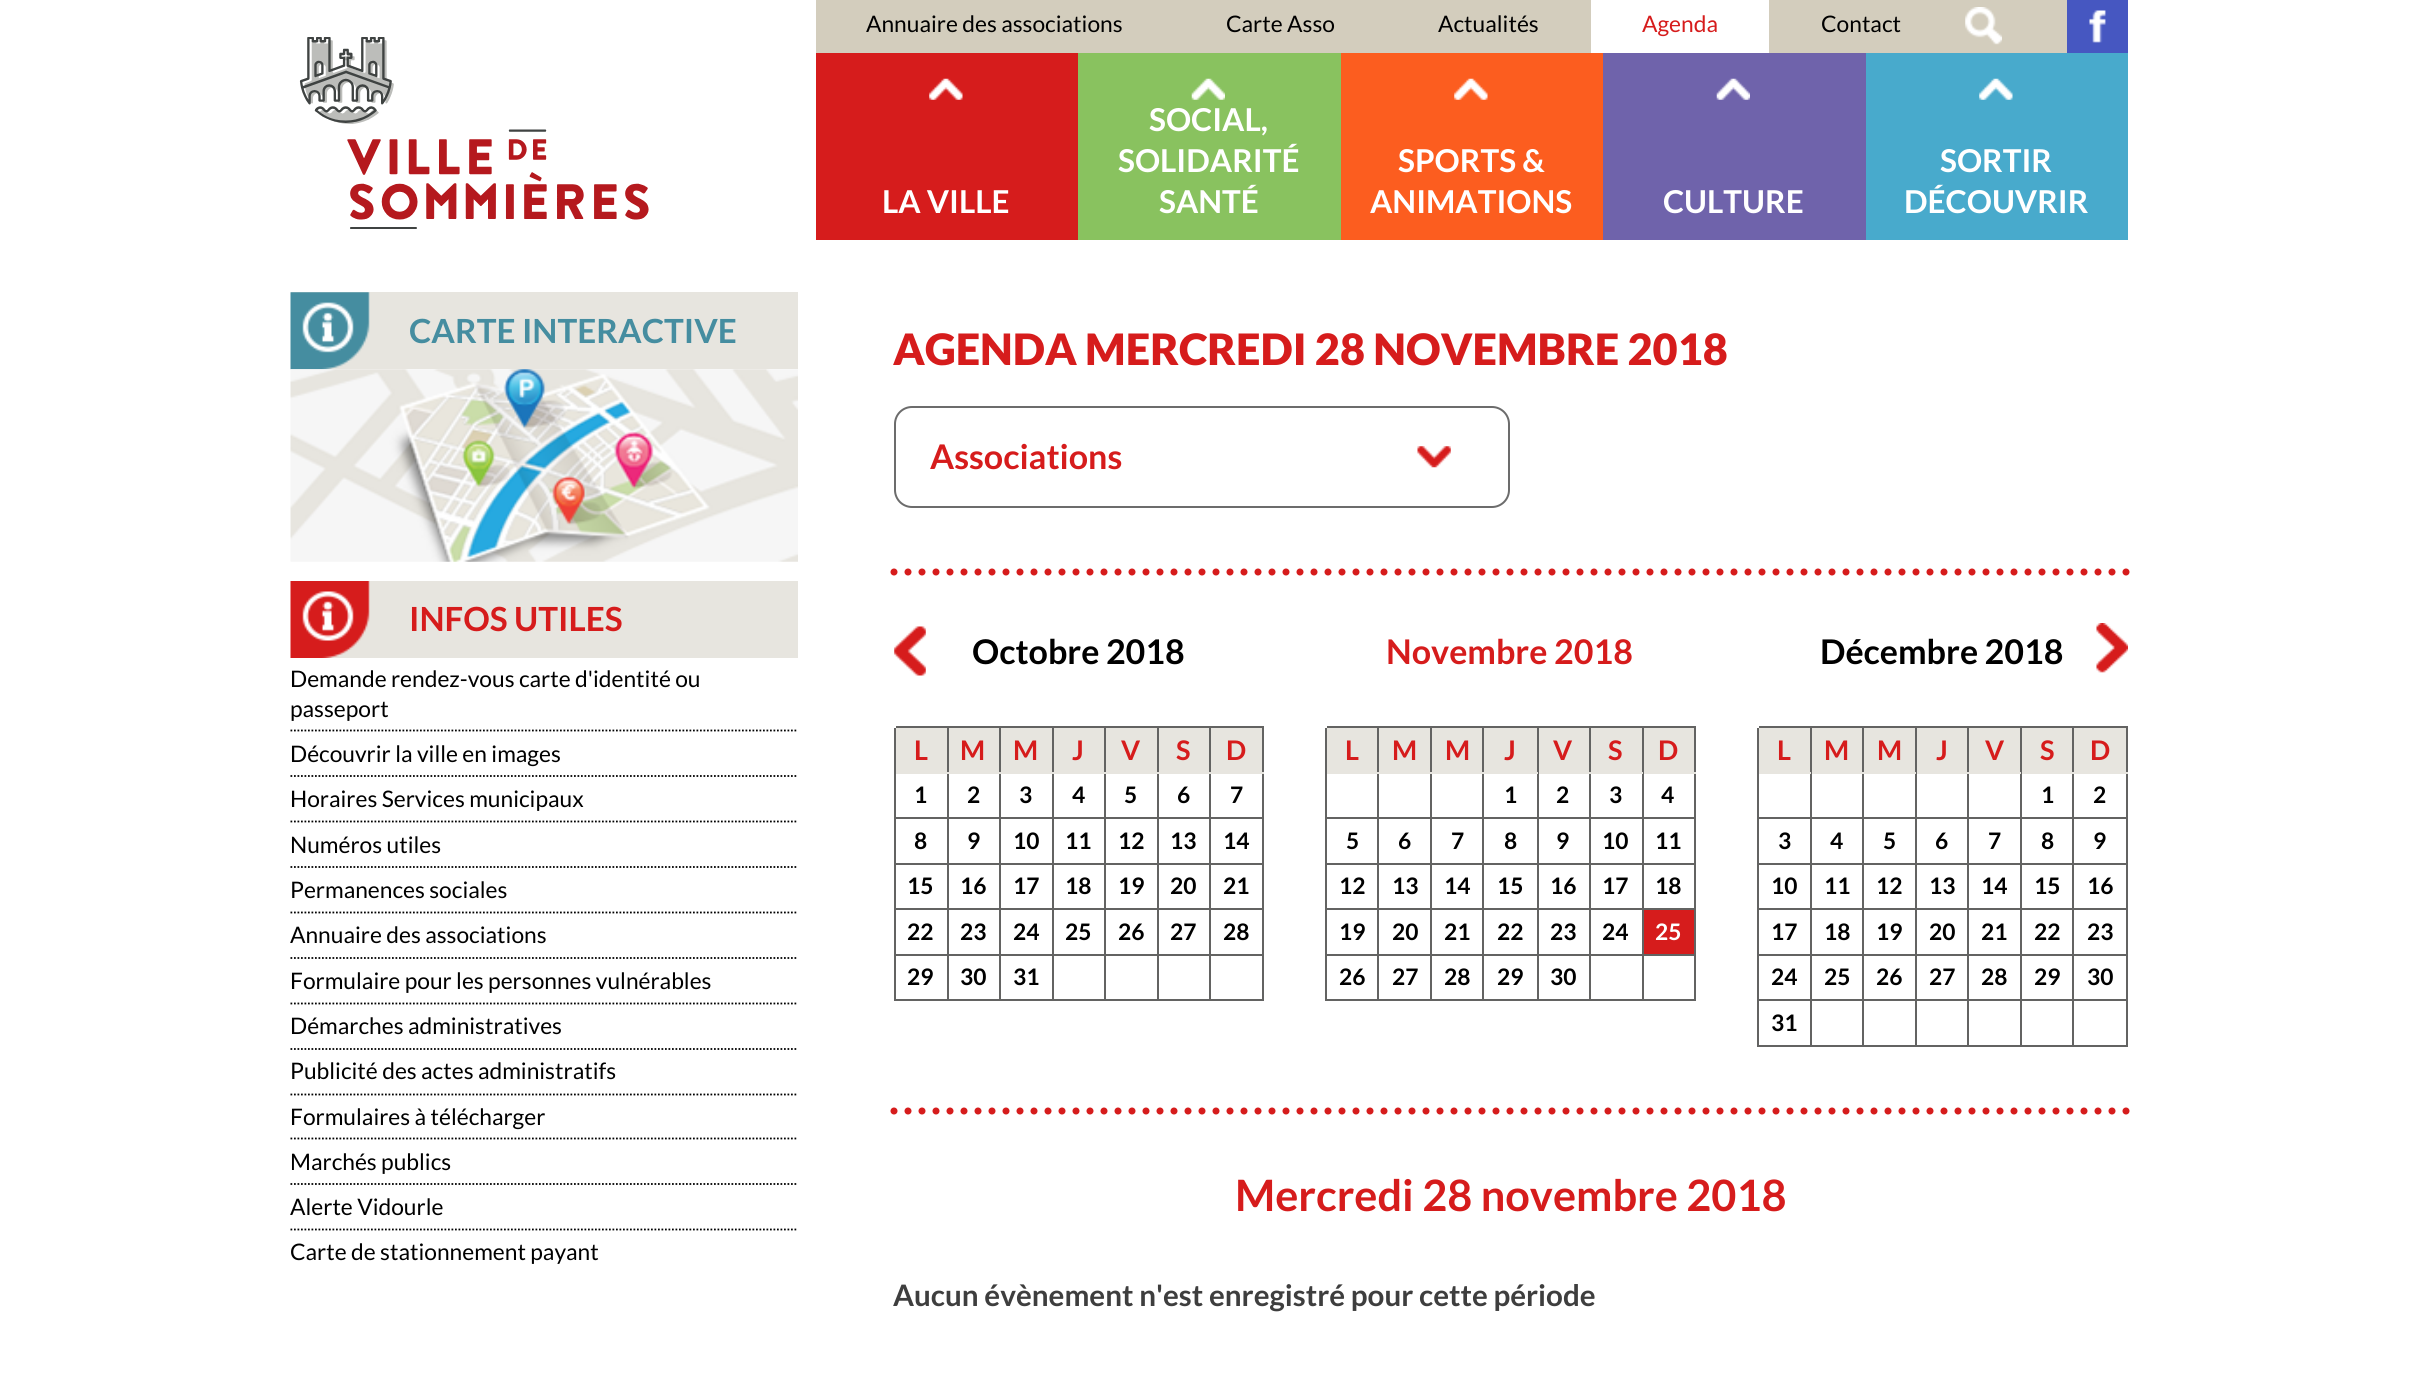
import math
import cairocffi as cairo

surface = cairo.ImageSurface(cairo.FORMAT_RGB24, 2416, 1394)
ctx = cairo.Context(surface)
options = cairo.FontOptions()
options.set_hint_metrics(cairo.HINT_METRICS_OFF)
options.set_hint_style(cairo.HINT_STYLE_NONE)
ctx.set_font_options(options)
ctx.set_miter_limit(4)


def rgb(r, g, b):
    ctx.set_source_rgb(r / 255, g / 255, b / 255)


def face(family, size, italic, bold):
    ctx.select_font_face(family, cairo.FONT_SLANT_ITALIC if italic else cairo.FONT_SLANT_NORMAL, cairo.FONT_WEIGHT_BOLD if bold else cairo.FONT_WEIGHT_NORMAL)
    ctx.set_font_size(size)


def label(x, y, s):
    ctx.move_to(x, y)
    ctx.show_text(s)


def rect(x, y, w, h):
    ctx.rectangle(x, y, w, h)
    ctx.fill()


def rrect(x, y, w, h, r):
    ctx.new_sub_path()
    for i, (u, v) in enumerate([(x + w - r, y + h - r), (x + r, y + h - r), (x + r, y + r), (x + w - r, y + r)]):
        ctx.arc(u, v, r, i * math.pi / 2, (i + 1) * math.pi / 2)
    ctx.close_path()


def image(path, x, y, w, h):
    ctx.save()
    ctx.set_source_surface(cairo.ImageSurface.create_from_png(path), x, y)
    ctx.rectangle(x, y, w, h)
    ctx.fill()
    ctx.restore()


rgb(255, 255, 255)
ctx.paint()
image('image0.png', 299, 37, 350, 192)
rgb(211, 205, 189)
rect(816, 0, 1251, 53)
face('Lato', 22.75, 0, 0)
rgb(0, 0, 0)
label(866, 32, 'Annuaire des associations')
label(1226, 32, 'Carte Asso')
label(1438, 32, 'Actualités')
rgb(255, 255, 255)
rect(1591, 0, 178, 53)
rgb(214, 28, 28)
label(1642, 32, 'Agenda')
rgb(0, 0, 0)
label(1821, 32, 'Contact')
image('image1.png', 1965, 7, 37, 38)
rgb(70, 87, 193)
rect(2067, 0, 61, 53)
image('image2.png', 2089, 10, 17, 33)
rgb(214, 28, 28)
rect(816, 53, 262, 187)
image('image3.png', 929, 78, 34, 22)
face('Lato', 31.5, 0, 1)
rgb(255, 255, 255)
label(882, 213, 'LA VILLE')
rgb(137, 194, 95)
rect(1078, 53, 263, 187)
image('image4.png', 1191, 78, 34, 22)
rgb(255, 255, 255)
label(1149, 131, 'SOCIAL,')
label(1118, 172, 'SOLIDARITÉ')
label(1159, 213, 'SANTÉ')
rgb(252, 93, 31)
rect(1341, 53, 262, 187)
image('image5.png', 1454, 78, 34, 22)
rgb(255, 255, 255)
label(1398, 172, 'SPORTS &')
label(1370, 213, 'ANIMATIONS')
rgb(111, 99, 171)
rect(1603, 53, 263, 187)
image('image6.png', 1716, 78, 34, 22)
rgb(255, 255, 255)
label(1663, 213, 'CULTURE')
rgb(72, 170, 204)
rect(1866, 53, 262, 187)
image('image7.png', 1979, 78, 34, 22)
rgb(255, 255, 255)
label(1940, 172, 'SORTIR')
label(1904, 213, 'DÉCOUVRIR')
rgb(231, 229, 223)
rect(291, 292, 507, 77)
image('image8.png', 290, 292, 80, 78)
face('Lato', 33.25, 0, 1)
rgb(69, 141, 160)
label(409, 343, 'CARTE INTERACTIVE')
image('image9.png', 290, 369, 508, 193)
rgb(231, 229, 223)
rect(322, 581, 476, 77)
image('image10.png', 290, 581, 80, 77)
rgb(214, 28, 28)
label(409, 631, 'INFOS UTILES')
ctx.new_path()
ctx.move_to(290.5, 730.5)
ctx.line_to(798, 730.5)
rgb(0, 0, 0)
ctx.set_line_width(1.8)
ctx.set_dash([1.75, 1.75])
ctx.stroke()
face('Lato', 22.75, 0, 0)
label(290, 687, 'Demande rendez-vous carte d\'identité ou')
label(290, 717, 'passeport')
ctx.new_path()
ctx.move_to(290.5, 776)
ctx.line_to(798, 776)
ctx.stroke()
label(290, 762, 'Découvrir la ville en images')
ctx.new_path()
ctx.move_to(290.5, 821.5)
ctx.line_to(798, 821.5)
ctx.stroke()
label(290, 807, 'Horaires Services municipaux')
ctx.new_path()
ctx.move_to(290.5, 867)
ctx.line_to(798, 867)
ctx.stroke()
label(290, 853, 'Numéros utiles')
ctx.new_path()
ctx.move_to(290.5, 912.5)
ctx.line_to(798, 912.5)
ctx.stroke()
label(290, 898, 'Permanences sociales')
ctx.new_path()
ctx.move_to(290.5, 958)
ctx.line_to(798, 958)
ctx.stroke()
label(290, 943, 'Annuaire des associations')
ctx.new_path()
ctx.move_to(290.5, 1003.5)
ctx.line_to(798, 1003.5)
ctx.stroke()
label(290, 989, 'Formulaire pour les personnes vulnérables')
ctx.new_path()
ctx.move_to(290.5, 1049)
ctx.line_to(798, 1049)
ctx.stroke()
label(290, 1034, 'Démarches administratives')
ctx.new_path()
ctx.move_to(290.5, 1094.5)
ctx.line_to(798, 1094.5)
ctx.stroke()
label(290, 1079, 'Publicité des actes administratifs')
ctx.new_path()
ctx.move_to(290.5, 1138.5)
ctx.line_to(798, 1138.5)
ctx.stroke()
label(290, 1125, 'Formulaires à télécharger')
ctx.new_path()
ctx.move_to(290.5, 1184)
ctx.line_to(798, 1184)
ctx.stroke()
label(290, 1170, 'Marchés publics')
ctx.new_path()
ctx.move_to(290.5, 1229.5)
ctx.line_to(798, 1229.5)
ctx.stroke()
label(290, 1215, 'Alerte Vidourle')
label(290, 1260, 'Carte de stationnement payant')
face('Lato Black', 43.25, 0, 0)
rgb(214, 28, 28)
label(893, 365, 'AGENDA MERCREDI 28 NOVEMBRE 2018')
image('image11.png', 1417, 446, 34, 22)
rrect(895, 407, 614, 100, 17)
rgb(108, 108, 108)
ctx.set_line_width(2)
ctx.set_dash([])
ctx.stroke()
face('Lato', 34, 0, 1)
rgb(214, 28, 28)
label(930, 469, 'Associations')
ctx.new_path()
ctx.move_to(894, 572)
ctx.line_to(2128, 572)
ctx.set_line_width(7)
ctx.set_line_cap(cairo.LINE_CAP_ROUND)
ctx.set_dash([0, 14])
ctx.stroke()
ctx.new_path()
ctx.move_to(894, 1111)
ctx.line_to(2128, 1111)
ctx.stroke()
image('image12.png', 894, 626, 32, 50)
image('image13.png', 2096, 623, 32, 50)
rgb(99, 99, 98)
rect(1209, 817, 55, 2)
rect(1209, 863, 55, 2)
rect(1209, 908, 55, 2)
rect(1209, 954, 55, 2)
rect(1262, 954, 2, 47)
rect(1262, 908, 2, 48)
rect(1262, 863, 2, 47)
rect(1262, 726, 2, 139)
rgb(255, 255, 255)
rect(1262, 726, 2, 2)
rgb(99, 99, 98)
rect(1209, 999, 55, 2)
rect(1209, 954, 2, 47)
rect(1157, 954, 54, 2)
rect(1209, 908, 2, 48)
rect(1157, 908, 54, 2)
rect(1209, 863, 2, 47)
rect(1157, 863, 54, 2)
rect(1209, 817, 2, 48)
rect(1157, 817, 54, 2)
rect(1209, 772, 2, 47)
rgb(231, 229, 223)
rect(1209, 772, 55, 2)
rgb(99, 99, 98)
rect(1209, 726, 2, 48)
rect(1157, 999, 54, 2)
rect(1157, 954, 2, 47)
rect(1104, 954, 55, 2)
rect(1157, 908, 2, 48)
rect(1104, 908, 55, 2)
rect(1157, 863, 2, 47)
rect(1104, 863, 55, 2)
rect(1157, 817, 2, 48)
rect(1104, 817, 55, 2)
rect(1157, 772, 2, 47)
rgb(231, 229, 223)
rect(1157, 772, 54, 2)
rgb(99, 99, 98)
rect(1157, 726, 2, 48)
rect(1104, 999, 55, 2)
rect(1104, 954, 2, 47)
rect(1052, 954, 54, 2)
rect(1104, 908, 2, 48)
rect(1052, 908, 54, 2)
rect(1104, 863, 2, 47)
rect(1052, 863, 54, 2)
rect(1104, 817, 2, 48)
rect(1052, 817, 54, 2)
rect(1104, 772, 2, 47)
rgb(231, 229, 223)
rect(1104, 772, 55, 2)
rgb(99, 99, 98)
rect(1104, 726, 2, 48)
rect(1052, 999, 54, 2)
rect(1052, 954, 2, 47)
rect(999, 954, 55, 2)
rect(1052, 908, 2, 48)
rect(999, 908, 55, 2)
rect(1052, 863, 2, 47)
rect(999, 863, 55, 2)
rect(1052, 817, 2, 48)
rect(999, 817, 55, 2)
rect(1052, 772, 2, 47)
rgb(231, 229, 223)
rect(1052, 772, 54, 2)
rgb(99, 99, 98)
rect(1052, 726, 2, 48)
rect(999, 999, 55, 2)
rect(999, 954, 2, 47)
rect(947, 954, 54, 2)
rect(999, 908, 2, 48)
rect(947, 908, 54, 2)
rect(999, 863, 2, 47)
rect(947, 863, 54, 2)
rect(999, 817, 2, 48)
rect(947, 817, 54, 2)
rect(999, 772, 2, 47)
rgb(231, 229, 223)
rect(999, 772, 55, 2)
rgb(99, 99, 98)
rect(999, 726, 2, 48)
rect(947, 999, 54, 2)
rect(947, 954, 2, 47)
rect(894, 954, 55, 2)
rect(947, 908, 2, 48)
rect(894, 908, 55, 2)
rect(947, 863, 2, 47)
rect(894, 863, 55, 2)
rect(947, 817, 2, 48)
rect(894, 817, 55, 2)
rect(947, 772, 2, 47)
rgb(231, 229, 223)
rect(947, 772, 54, 2)
rgb(99, 99, 98)
rect(947, 726, 2, 48)
rect(894, 999, 55, 2)
rect(894, 954, 2, 47)
rect(894, 908, 2, 48)
rect(894, 863, 2, 47)
rect(894, 772, 2, 93)
rgb(231, 229, 223)
rect(894, 772, 55, 2)
rgb(99, 99, 98)
rect(894, 726, 2, 48)
rect(894, 726, 370, 2)
rgb(255, 255, 255)
rect(894, 726, 2, 2)
rgb(0, 0, 0)
label(972, 664, 'Octobre 2018')
rgb(231, 229, 223)
rect(896, 728, 51, 44)
face('Lato', 27, 0, 1)
rgb(214, 28, 28)
label(914, 760, 'L')
rgb(231, 229, 223)
rect(949, 728, 50, 44)
rgb(214, 28, 28)
label(960, 760, 'M')
rgb(231, 229, 223)
rect(1001, 728, 51, 44)
rgb(214, 28, 28)
label(1013, 760, 'M')
rgb(231, 229, 223)
rect(1054, 728, 50, 44)
rgb(214, 28, 28)
label(1072, 760, 'J')
rgb(231, 229, 223)
rect(1106, 728, 51, 44)
rgb(214, 28, 28)
label(1121, 760, 'V')
rgb(231, 229, 223)
rect(1159, 728, 50, 44)
rgb(214, 28, 28)
label(1176, 760, 'S')
rgb(231, 229, 223)
rect(1211, 728, 51, 44)
rgb(214, 28, 28)
label(1226, 760, 'D')
face('Lato', 22.75, 0, 1)
rgb(0, 0, 0)
label(914, 803, '1')
label(967, 803, '2')
label(1019, 803, '3')
label(1072, 803, '4')
label(1124, 803, '5')
label(1177, 803, '6')
label(1230, 803, '7')
label(914, 849, '8')
label(967, 849, '9')
label(1013, 849, '10')
label(1065, 849, '11')
label(1118, 849, '12')
label(1170, 849, '13')
label(1223, 849, '14')
label(907, 894, '15')
label(960, 894, '16')
label(1013, 894, '17')
label(1065, 894, '18')
label(1118, 894, '19')
label(1170, 894, '20')
label(1223, 894, '21')
label(907, 940, '22')
label(960, 940, '23')
label(1013, 940, '24')
label(1065, 940, '25')
label(1118, 940, '26')
label(1170, 940, '27')
label(1223, 940, '28')
label(907, 985, '29')
label(960, 985, '30')
label(1013, 985, '31')
rgb(99, 99, 98)
rect(1642, 817, 54, 2)
rect(1642, 863, 54, 2)
rect(1642, 908, 54, 2)
rect(1642, 954, 54, 2)
rect(1694, 954, 2, 47)
rect(1694, 908, 2, 48)
rect(1694, 863, 2, 47)
rect(1694, 726, 2, 139)
rgb(255, 255, 255)
rect(1694, 726, 2, 2)
rgb(99, 99, 98)
rect(1642, 999, 54, 2)
rect(1642, 954, 2, 47)
rect(1589, 954, 54, 2)
rect(1642, 908, 2, 48)
rect(1589, 908, 54, 2)
rect(1642, 863, 2, 47)
rect(1589, 863, 54, 2)
rect(1642, 817, 2, 48)
rect(1589, 817, 54, 2)
rect(1642, 772, 2, 47)
rgb(231, 229, 223)
rect(1642, 772, 54, 2)
rgb(99, 99, 98)
rect(1642, 726, 2, 48)
rect(1589, 999, 54, 2)
rect(1589, 954, 2, 47)
rect(1537, 954, 54, 2)
rect(1589, 908, 2, 48)
rect(1537, 908, 54, 2)
rect(1589, 863, 2, 47)
rect(1537, 863, 54, 2)
rect(1589, 817, 2, 48)
rect(1537, 817, 54, 2)
rect(1589, 772, 2, 47)
rgb(231, 229, 223)
rect(1589, 772, 54, 2)
rgb(99, 99, 98)
rect(1589, 726, 2, 48)
rect(1537, 999, 54, 2)
rect(1537, 954, 2, 47)
rect(1482, 954, 56, 2)
rect(1537, 908, 2, 48)
rect(1482, 908, 56, 2)
rect(1537, 863, 2, 47)
rect(1482, 863, 56, 2)
rect(1537, 817, 2, 48)
rect(1482, 817, 56, 2)
rect(1537, 772, 2, 47)
rgb(231, 229, 223)
rect(1537, 772, 54, 2)
rgb(99, 99, 98)
rect(1537, 726, 2, 48)
rect(1482, 999, 56, 2)
rect(1482, 954, 2, 47)
rect(1430, 954, 54, 2)
rect(1482, 908, 2, 48)
rect(1430, 908, 54, 2)
rect(1482, 863, 2, 47)
rect(1430, 863, 54, 2)
rect(1482, 817, 2, 48)
rect(1430, 817, 54, 2)
rect(1482, 772, 2, 47)
rgb(231, 229, 223)
rect(1482, 772, 56, 2)
rgb(99, 99, 98)
rect(1482, 726, 2, 48)
rect(1430, 999, 54, 2)
rect(1430, 954, 2, 47)
rect(1377, 954, 55, 2)
rect(1430, 908, 2, 48)
rect(1377, 908, 55, 2)
rect(1430, 863, 2, 47)
rect(1377, 863, 55, 2)
rect(1430, 817, 2, 48)
rect(1377, 817, 55, 2)
rect(1430, 772, 2, 47)
rgb(231, 229, 223)
rect(1430, 772, 54, 2)
rgb(99, 99, 98)
rect(1430, 726, 2, 48)
rect(1377, 999, 55, 2)
rect(1377, 954, 2, 47)
rect(1325, 954, 54, 2)
rect(1377, 908, 2, 48)
rect(1325, 908, 54, 2)
rect(1377, 863, 2, 47)
rect(1325, 863, 54, 2)
rect(1377, 817, 2, 48)
rect(1325, 817, 54, 2)
rect(1377, 772, 2, 47)
rgb(231, 229, 223)
rect(1377, 772, 55, 2)
rgb(99, 99, 98)
rect(1377, 726, 2, 48)
rect(1325, 999, 54, 2)
rect(1325, 954, 2, 47)
rect(1325, 908, 2, 48)
rect(1325, 863, 2, 47)
rect(1325, 772, 2, 93)
rgb(231, 229, 223)
rect(1325, 772, 54, 2)
rgb(99, 99, 98)
rect(1325, 726, 2, 48)
rect(1325, 726, 371, 2)
rgb(255, 255, 255)
rect(1325, 726, 2, 2)
face('Lato', 34, 0, 1)
rgb(214, 28, 28)
label(1386, 664, 'Novembre 2018')
rgb(231, 229, 223)
rect(1327, 728, 50, 44)
face('Lato', 27, 0, 1)
rgb(214, 28, 28)
label(1345, 760, 'L')
rgb(231, 229, 223)
rect(1379, 728, 51, 44)
rgb(214, 28, 28)
label(1392, 760, 'M')
rgb(231, 229, 223)
rect(1432, 728, 50, 44)
rgb(214, 28, 28)
label(1445, 760, 'M')
rgb(231, 229, 223)
rect(1484, 728, 53, 44)
rgb(214, 28, 28)
label(1504, 760, 'J')
rgb(231, 229, 223)
rect(1539, 728, 50, 44)
rgb(214, 28, 28)
label(1553, 760, 'V')
rgb(231, 229, 223)
rect(1591, 728, 51, 44)
rgb(214, 28, 28)
label(1608, 760, 'S')
rgb(231, 229, 223)
rect(1644, 728, 50, 44)
rgb(214, 28, 28)
label(1658, 760, 'D')
face('Lato', 22.75, 0, 1)
rgb(0, 0, 0)
label(1504, 803, '1')
label(1556, 803, '2')
label(1609, 803, '3')
label(1661, 803, '4')
label(1346, 849, '5')
label(1398, 849, '6')
label(1451, 849, '7')
label(1504, 849, '8')
label(1556, 849, '9')
label(1602, 849, '10')
label(1655, 849, '11')
label(1339, 894, '12')
label(1392, 894, '13')
label(1444, 894, '14')
label(1497, 894, '15')
label(1550, 894, '16')
label(1602, 894, '17')
label(1655, 894, '18')
label(1339, 940, '19')
label(1392, 940, '20')
label(1444, 940, '21')
label(1497, 940, '22')
label(1550, 940, '23')
label(1602, 940, '24')
rgb(214, 28, 28)
rect(1644, 910, 50, 44)
rgb(255, 255, 255)
label(1655, 940, '25')
rgb(0, 0, 0)
label(1339, 985, '26')
label(1392, 985, '27')
label(1444, 985, '28')
label(1497, 985, '29')
label(1550, 985, '30')
rgb(99, 99, 98)
rect(2072, 817, 56, 2)
rect(2072, 863, 56, 2)
rect(2072, 908, 56, 2)
rect(2072, 954, 56, 2)
rect(2072, 999, 56, 2)
rect(2126, 999, 2, 48)
rect(2126, 954, 2, 47)
rect(2126, 908, 2, 48)
rect(2126, 863, 2, 47)
rect(2126, 726, 2, 139)
rgb(255, 255, 255)
rect(2126, 726, 2, 2)
rgb(99, 99, 98)
rect(2072, 1045, 56, 2)
rect(2072, 999, 2, 48)
rect(2020, 999, 54, 2)
rect(2072, 954, 2, 47)
rect(2020, 954, 54, 2)
rect(2072, 908, 2, 48)
rect(2020, 908, 54, 2)
rect(2072, 863, 2, 47)
rect(2020, 863, 54, 2)
rect(2072, 817, 2, 48)
rect(2020, 817, 54, 2)
rect(2072, 772, 2, 47)
rgb(231, 229, 223)
rect(2072, 772, 56, 2)
rgb(99, 99, 98)
rect(2072, 726, 2, 48)
rect(2020, 1045, 54, 2)
rect(2020, 999, 2, 48)
rect(1967, 999, 54, 2)
rect(2020, 954, 2, 47)
rect(1967, 954, 54, 2)
rect(2020, 908, 2, 48)
rect(1967, 908, 54, 2)
rect(2020, 863, 2, 47)
rect(1967, 863, 54, 2)
rect(2020, 817, 2, 48)
rect(1967, 817, 54, 2)
rect(2020, 772, 2, 47)
rgb(231, 229, 223)
rect(2020, 772, 54, 2)
rgb(99, 99, 98)
rect(2020, 726, 2, 48)
rect(1967, 1045, 54, 2)
rect(1967, 999, 2, 48)
rect(1915, 999, 54, 2)
rect(1967, 954, 2, 47)
rect(1915, 954, 54, 2)
rect(1967, 908, 2, 48)
rect(1915, 908, 54, 2)
rect(1967, 863, 2, 47)
rect(1915, 863, 54, 2)
rect(1967, 817, 2, 48)
rect(1915, 817, 54, 2)
rect(1967, 772, 2, 47)
rgb(231, 229, 223)
rect(1967, 772, 54, 2)
rgb(99, 99, 98)
rect(1967, 726, 2, 48)
rect(1915, 1045, 54, 2)
rect(1915, 999, 2, 48)
rect(1862, 999, 54, 2)
rect(1915, 954, 2, 47)
rect(1862, 954, 54, 2)
rect(1915, 908, 2, 48)
rect(1862, 908, 54, 2)
rect(1915, 863, 2, 47)
rect(1862, 863, 54, 2)
rect(1915, 817, 2, 48)
rect(1862, 817, 54, 2)
rect(1915, 772, 2, 47)
rgb(231, 229, 223)
rect(1915, 772, 54, 2)
rgb(99, 99, 98)
rect(1915, 726, 2, 48)
rect(1862, 1045, 54, 2)
rect(1862, 999, 2, 48)
rect(1810, 999, 54, 2)
rect(1862, 954, 2, 47)
rect(1810, 954, 54, 2)
rect(1862, 908, 2, 48)
rect(1810, 908, 54, 2)
rect(1862, 863, 2, 47)
rect(1810, 863, 54, 2)
rect(1862, 817, 2, 48)
rect(1810, 817, 54, 2)
rect(1862, 772, 2, 47)
rgb(231, 229, 223)
rect(1862, 772, 54, 2)
rgb(99, 99, 98)
rect(1862, 726, 2, 48)
rect(1810, 1045, 54, 2)
rect(1810, 999, 2, 48)
rect(1757, 999, 54, 2)
rect(1810, 954, 2, 47)
rect(1757, 954, 54, 2)
rect(1810, 908, 2, 48)
rect(1757, 908, 54, 2)
rect(1810, 863, 2, 47)
rect(1757, 863, 54, 2)
rect(1810, 817, 2, 48)
rect(1757, 817, 54, 2)
rect(1810, 772, 2, 47)
rgb(231, 229, 223)
rect(1810, 772, 54, 2)
rgb(99, 99, 98)
rect(1810, 726, 2, 48)
rect(1757, 1045, 54, 2)
rect(1757, 999, 2, 48)
rect(1757, 954, 2, 47)
rect(1757, 908, 2, 48)
rect(1757, 863, 2, 47)
rect(1757, 772, 2, 93)
rgb(231, 229, 223)
rect(1757, 772, 54, 2)
rgb(99, 99, 98)
rect(1757, 726, 2, 48)
rect(1757, 726, 371, 2)
rgb(255, 255, 255)
rect(1757, 726, 2, 2)
face('Lato', 34, 0, 1)
rgb(0, 0, 0)
label(1820, 664, 'Décembre 2018')
rgb(231, 229, 223)
rect(1759, 728, 51, 44)
face('Lato', 27, 0, 1)
rgb(214, 28, 28)
label(1777, 760, 'L')
rgb(231, 229, 223)
rect(1812, 728, 50, 44)
rgb(214, 28, 28)
label(1824, 760, 'M')
rgb(231, 229, 223)
rect(1864, 728, 51, 44)
rgb(214, 28, 28)
label(1877, 760, 'M')
rgb(231, 229, 223)
rect(1917, 728, 50, 44)
rgb(214, 28, 28)
label(1936, 760, 'J')
rgb(231, 229, 223)
rect(1969, 728, 51, 44)
rgb(214, 28, 28)
label(1985, 760, 'V')
rgb(231, 229, 223)
rect(2022, 728, 50, 44)
rgb(214, 28, 28)
label(2040, 760, 'S')
rgb(231, 229, 223)
rect(2074, 728, 52, 44)
rgb(214, 28, 28)
label(2090, 760, 'D')
face('Lato', 22.75, 0, 1)
rgb(0, 0, 0)
label(2041, 803, '1')
label(2093, 803, '2')
label(1778, 849, '3')
label(1830, 849, '4')
label(1883, 849, '5')
label(1935, 849, '6')
label(1988, 849, '7')
label(2041, 849, '8')
label(2093, 849, '9')
label(1771, 894, '10')
label(1824, 894, '11')
label(1876, 894, '12')
label(1929, 894, '13')
label(1981, 894, '14')
label(2034, 894, '15')
label(2087, 894, '16')
label(1771, 940, '17')
label(1824, 940, '18')
label(1876, 940, '19')
label(1929, 940, '20')
label(1981, 940, '21')
label(2034, 940, '22')
label(2087, 940, '23')
label(1771, 985, '24')
label(1824, 985, '25')
label(1876, 985, '26')
label(1929, 985, '27')
label(1981, 985, '28')
label(2034, 985, '29')
label(2087, 985, '30')
label(1771, 1031, '31')
face('Lato', 43.25, 0, 1)
rgb(214, 28, 28)
label(1235, 1211, 'Mercredi 28 novembre 2018')
face('Lato', 29.6, 0, 1)
rgb(62, 62, 62)
label(893, 1306, 'Aucun évènement n\'est enregistré pour cette période')
surface.write_to_png('render.png')
